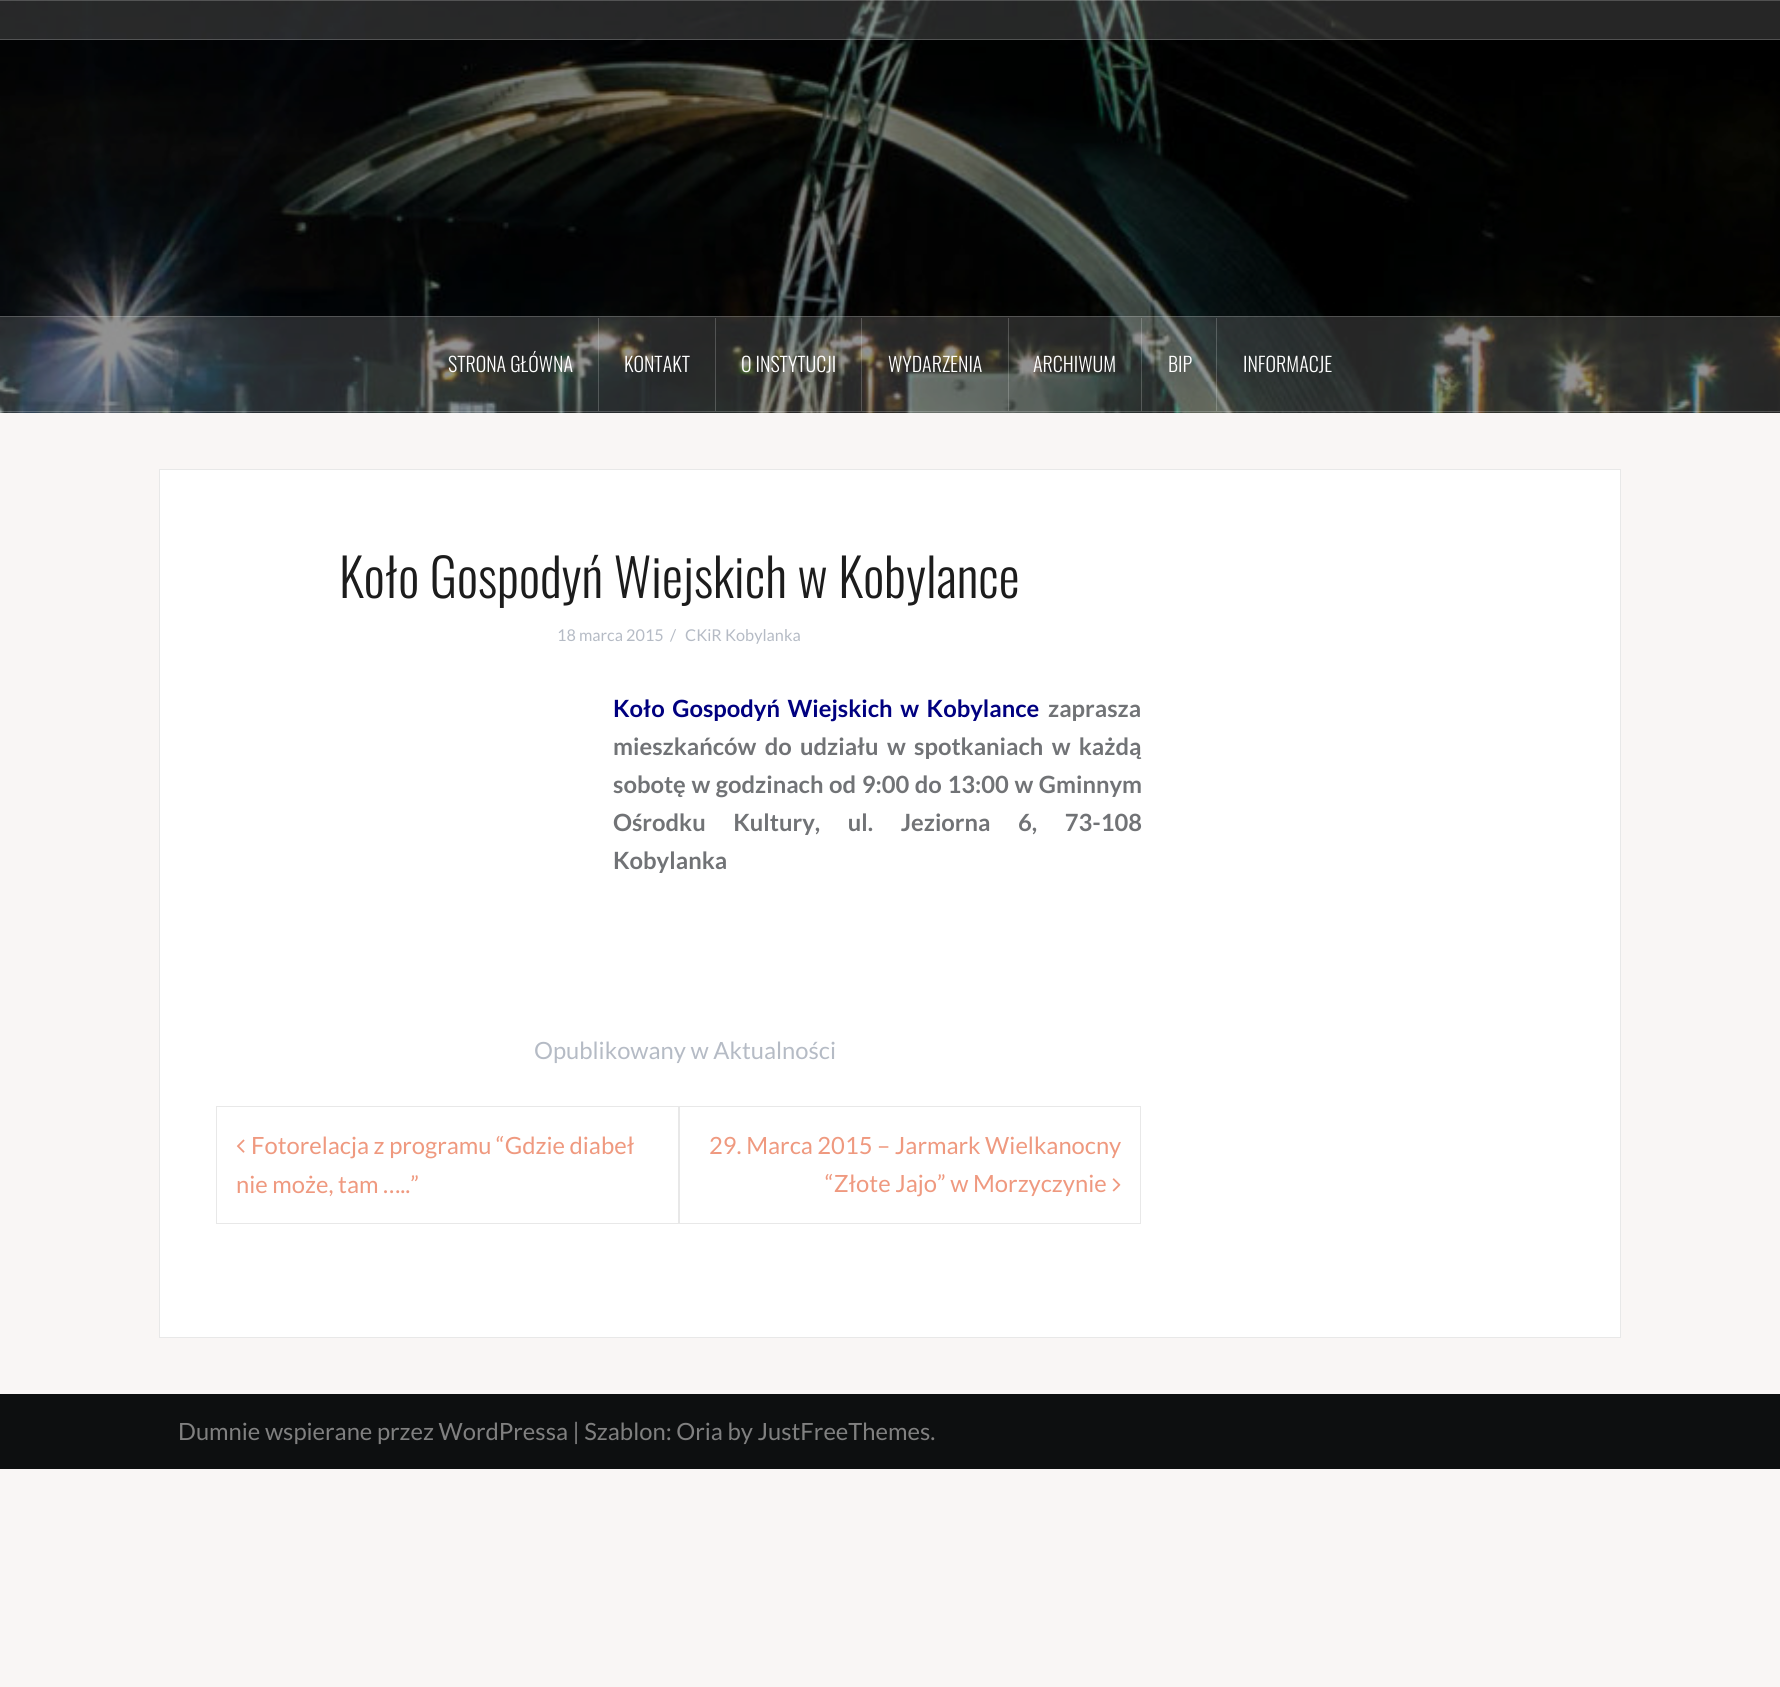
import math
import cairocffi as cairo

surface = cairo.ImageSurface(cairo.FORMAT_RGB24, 1780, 1687)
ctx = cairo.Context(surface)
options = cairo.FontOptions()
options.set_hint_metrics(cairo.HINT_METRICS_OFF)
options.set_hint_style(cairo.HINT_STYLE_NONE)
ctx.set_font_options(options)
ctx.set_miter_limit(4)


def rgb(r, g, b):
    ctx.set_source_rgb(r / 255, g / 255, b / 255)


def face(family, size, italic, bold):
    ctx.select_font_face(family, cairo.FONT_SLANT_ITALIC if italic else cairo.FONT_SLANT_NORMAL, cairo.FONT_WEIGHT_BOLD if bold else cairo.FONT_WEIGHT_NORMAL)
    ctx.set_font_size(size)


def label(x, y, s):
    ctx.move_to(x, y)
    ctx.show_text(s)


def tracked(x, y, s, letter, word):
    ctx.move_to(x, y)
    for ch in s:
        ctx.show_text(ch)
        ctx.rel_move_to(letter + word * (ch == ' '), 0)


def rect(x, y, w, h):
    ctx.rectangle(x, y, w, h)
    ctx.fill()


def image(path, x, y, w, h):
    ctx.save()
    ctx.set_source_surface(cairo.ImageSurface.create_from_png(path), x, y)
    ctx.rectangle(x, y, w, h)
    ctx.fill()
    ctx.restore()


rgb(249, 246, 245)
ctx.paint()
image('image0.png', 0, 0, 1780, 413)
ctx.set_source_rgba(1, 1, 1, 0.15)
rect(0, 0, 1780, 40)
ctx.set_source_rgba(1, 1, 1, 0.2)
rect(0, 0, 1780, 1)
rect(0, 39, 1780, 1)
ctx.set_source_rgba(1, 1, 1, 0.15)
rect(0, 316, 1780, 97)
ctx.set_source_rgba(1, 1, 1, 0.2)
rect(0, 316, 1780, 1)
rect(0, 411, 1780, 1)
rect(598, 318, 1, 93)
face('Oswald Light', 20, 0, 0)
rgb(255, 255, 255)
label(448, 372, 'STRONA GŁÓWNA')
ctx.set_source_rgba(1, 1, 1, 0.2)
rect(715, 318, 1, 93)
rgb(255, 255, 255)
label(624, 372, 'KONTAKT')
ctx.set_source_rgba(1, 1, 1, 0.2)
rect(861, 318, 1, 93)
rgb(255, 255, 255)
label(741, 372, 'O INSTYTUCJI')
ctx.set_source_rgba(1, 1, 1, 0.2)
rect(1008, 318, 1, 93)
rgb(255, 255, 255)
label(888, 372, 'WYDARZENIA')
ctx.set_source_rgba(1, 1, 1, 0.2)
rect(1141, 318, 1, 93)
rgb(255, 255, 255)
label(1033, 372, 'ARCHIWUM')
ctx.set_source_rgba(1, 1, 1, 0.2)
rect(1216, 318, 1, 93)
rgb(255, 255, 255)
label(1168, 372, 'BIP')
label(1243, 372, 'INFORMACJE')
ctx.rectangle(159.5, 469.5, 1461, 868)
ctx.fill_preserve()
rgb(232, 232, 232)
ctx.set_line_width(1)
ctx.stroke()
face('Oswald Light', 52.5, 0, 0)
rgb(28, 28, 28)
label(339, 598, 'Koło Gospodyń Wiejskich w Kobylance')
face('Lato', 16.25, 0, 0)
rgb(181, 187, 197)
label(557, 641, '18 marca 2015')
label(670, 641, '/')
label(685, 641, 'CKiR Kobylanka')
face('Lato', 23.75, 0, 1)
rgb(0, 0, 128)
tracked(613, 717, 'Koło Gospodyń Wiejskich w Kobylance', 0, 3)
rgb(113, 115, 118)
label(1048, 717, 'zaprasza')
tracked(613, 755, 'mieszkańców do udziału w spotkaniach w każdą', 0, 3.75)
tracked(613, 793, 'sobotę w godzinach od 9:00 do 13:00 w Gminnym', 0, 1)
tracked(613, 831, 'Ośrodku Kultury, ul. Jeziorna 6, 73-108', 0, 23)
label(613, 869, 'Kobylanka')
face('Lato', 23.75, 0, 0)
rgb(181, 187, 197)
label(534, 1059, 'Opublikowany w Aktualności')
ctx.rectangle(216.5, 1106.5, 462, 117)
rgb(232, 232, 232)
ctx.stroke()
image('image1.png', 236, 1139, 9, 14)
rgb(239, 153, 127)
label(251, 1154, 'Fotorelacja z programu “Gdzie diabeł')
label(236, 1193, 'nie może, tam …..”')
ctx.rectangle(679.5, 1106.5, 461, 117)
rgb(232, 232, 232)
ctx.stroke()
rgb(239, 153, 127)
label(709, 1154, '29. Marca 2015 – Jarmark Wielkanocny')
label(825, 1192, '“Złote Jajo” w Morzyczynie')
image('image2.png', 1112, 1178, 9, 14)
rgb(13, 15, 16)
rect(0, 1394, 1780, 75)
rgb(128, 128, 128)
label(178, 1440, 'Dumnie wspierane przez WordPressa | Szablon: Oria by JustFreeThemes.')
surface.write_to_png('render.png')
